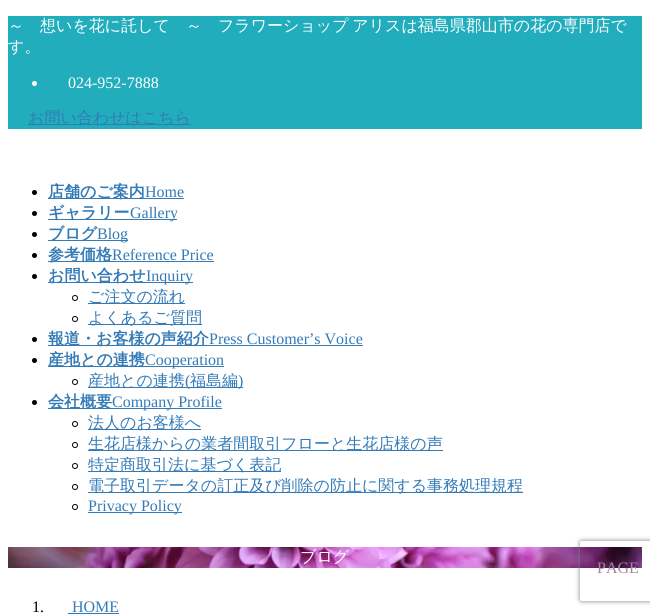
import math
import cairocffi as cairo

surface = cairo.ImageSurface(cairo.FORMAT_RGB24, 650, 615)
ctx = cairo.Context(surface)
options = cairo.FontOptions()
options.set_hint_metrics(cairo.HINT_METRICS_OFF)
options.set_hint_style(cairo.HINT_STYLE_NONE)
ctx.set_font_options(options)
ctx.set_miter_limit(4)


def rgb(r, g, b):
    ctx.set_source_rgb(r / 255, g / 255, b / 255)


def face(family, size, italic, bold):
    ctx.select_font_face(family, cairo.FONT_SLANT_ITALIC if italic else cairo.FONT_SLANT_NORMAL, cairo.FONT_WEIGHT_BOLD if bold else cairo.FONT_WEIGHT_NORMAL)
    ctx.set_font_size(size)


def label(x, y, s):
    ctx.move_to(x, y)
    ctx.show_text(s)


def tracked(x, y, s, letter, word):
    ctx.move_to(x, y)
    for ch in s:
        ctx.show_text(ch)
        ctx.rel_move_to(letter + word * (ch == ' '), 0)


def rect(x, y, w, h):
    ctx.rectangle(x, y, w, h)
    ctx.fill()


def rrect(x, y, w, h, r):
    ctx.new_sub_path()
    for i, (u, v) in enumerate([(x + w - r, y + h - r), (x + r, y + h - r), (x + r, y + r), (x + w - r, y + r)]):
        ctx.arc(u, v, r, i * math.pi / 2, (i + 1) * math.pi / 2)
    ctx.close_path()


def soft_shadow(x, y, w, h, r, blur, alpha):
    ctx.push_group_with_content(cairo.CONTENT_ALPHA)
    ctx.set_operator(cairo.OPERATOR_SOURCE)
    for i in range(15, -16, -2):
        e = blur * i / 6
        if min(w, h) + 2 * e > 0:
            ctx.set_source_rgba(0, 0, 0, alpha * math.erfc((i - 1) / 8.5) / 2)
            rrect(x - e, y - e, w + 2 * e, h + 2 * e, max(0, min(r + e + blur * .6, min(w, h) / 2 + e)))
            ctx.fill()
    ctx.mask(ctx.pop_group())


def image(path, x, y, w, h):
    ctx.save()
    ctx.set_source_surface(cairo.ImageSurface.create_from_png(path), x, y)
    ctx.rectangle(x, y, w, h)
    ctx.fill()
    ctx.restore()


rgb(255, 255, 255)
ctx.paint()
rgb(33, 173, 188)
rect(8, 16, 634, 113)
face('WenQuanYi Zen Hei Medium', 16, 0, 0)
rgb(255, 255, 255)
tracked(8, 31, '～　想いを花に託して　～　フラワーショップ アリスは福島県郡山市の花の専門店で', 0, -1)
label(8, 52, 'す。')
ctx.new_path()
ctx.arc(34.5, 83.5, 2.5, 0, 2 * math.pi)
ctx.fill()
face('Liberation Serif', 16, 0, 0)
label(68, 88, '024-952-7888')
rgb(51, 122, 183)
rect(28, 124, 163, 1)
face('WenQuanYi Zen Hei Medium', 16, 0, 0)
label(28, 123, 'お問い合わせはこちら')
rgb(0, 0, 0)
ctx.new_path()
ctx.arc(34.5, 192.5, 2.5, 0, 2 * math.pi)
ctx.fill()
rgb(51, 122, 183)
rect(48, 198, 136, 1)
face('WenQuanYi Zen Hei', 16, 0, 1)
label(48, 197, '店舗のご案内')
face('Liberation Serif', 16, 0, 0)
label(145, 197, 'Home')
rgb(0, 0, 0)
ctx.new_path()
ctx.arc(34.5, 213.5, 2.5, 0, 2 * math.pi)
ctx.fill()
rgb(51, 122, 183)
rect(48, 219, 129, 1)
face('WenQuanYi Zen Hei', 16, 0, 1)
label(48, 218, 'ギャラリー')
face('Liberation Serif', 16, 0, 0)
label(130, 218, 'Gallery')
rgb(0, 0, 0)
ctx.new_path()
ctx.arc(34.5, 234.5, 2.5, 0, 2 * math.pi)
ctx.fill()
rgb(51, 122, 183)
rect(48, 240, 49, 1)
face('WenQuanYi Zen Hei', 16, 0, 1)
label(48, 239, 'ブログ')
rect(97, 240, 31, 1)
face('Liberation Serif', 16, 0, 0)
label(97, 239, 'Blog')
rgb(0, 0, 0)
ctx.new_path()
ctx.arc(34.5, 255.5, 2.5, 0, 2 * math.pi)
ctx.fill()
rgb(51, 122, 183)
rect(48, 261, 166, 1)
face('WenQuanYi Zen Hei', 16, 0, 1)
label(48, 260, '参考価格')
face('Liberation Serif', 16, 0, 0)
label(112, 260, 'Reference Price')
rgb(0, 0, 0)
ctx.new_path()
ctx.arc(34.5, 276.5, 2.5, 0, 2 * math.pi)
ctx.fill()
rgb(51, 122, 183)
rect(48, 282, 145, 1)
face('WenQuanYi Zen Hei', 16, 0, 1)
label(48, 281, 'お問い合わせ')
face('Liberation Serif', 16, 0, 0)
label(146, 281, 'Inquiry')
ctx.new_path()
ctx.arc(75, 298, 2.5, 0, 2 * math.pi)
rgb(0, 0, 0)
ctx.set_line_width(1)
ctx.stroke()
rgb(51, 122, 183)
rect(88, 303, 97, 1)
face('WenQuanYi Zen Hei Medium', 16, 0, 0)
label(88, 302, 'ご注文の流れ')
ctx.new_path()
ctx.arc(75, 319, 2.5, 0, 2 * math.pi)
rgb(0, 0, 0)
ctx.stroke()
rgb(51, 122, 183)
rect(88, 324, 114, 1)
label(88, 323, 'よくあるご質問')
rgb(0, 0, 0)
ctx.new_path()
ctx.arc(34.5, 339.5, 2.5, 0, 2 * math.pi)
ctx.fill()
rgb(51, 122, 183)
rect(48, 345, 315, 1)
face('WenQuanYi Zen Hei', 16, 0, 1)
label(48, 344, '報道・お客様の声紹介')
face('Liberation Serif', 16, 0, 0)
label(209, 344, 'Press Customer’s Voice')
rgb(0, 0, 0)
ctx.new_path()
ctx.arc(34.5, 360.5, 2.5, 0, 2 * math.pi)
ctx.fill()
rgb(51, 122, 183)
rect(48, 366, 176, 1)
face('WenQuanYi Zen Hei', 16, 0, 1)
label(48, 365, '産地との連携')
face('Liberation Serif', 16, 0, 0)
label(145, 365, 'Cooperation')
ctx.new_path()
ctx.arc(75, 382, 2.5, 0, 2 * math.pi)
rgb(0, 0, 0)
ctx.stroke()
rgb(51, 122, 183)
rect(88, 387, 155, 1)
face('WenQuanYi Zen Hei Medium', 16, 0, 0)
label(88, 386, '産地との連携')
face('Liberation Serif', 16, 0, 0)
label(185, 386, '(')
face('WenQuanYi Zen Hei Medium', 16, 0, 0)
label(190, 386, '福島編')
face('Liberation Serif', 16, 0, 0)
label(238, 386, ')')
rgb(0, 0, 0)
ctx.new_path()
ctx.arc(34.5, 402.5, 2.5, 0, 2 * math.pi)
ctx.fill()
rgb(51, 122, 183)
rect(48, 408, 174, 1)
face('WenQuanYi Zen Hei', 16, 0, 1)
label(48, 407, '会社概要')
face('Liberation Serif', 16, 0, 0)
label(112, 407, 'Company Profile')
ctx.new_path()
ctx.arc(75, 424, 2.5, 0, 2 * math.pi)
rgb(0, 0, 0)
ctx.stroke()
rgb(51, 122, 183)
rect(88, 429, 113, 1)
face('WenQuanYi Zen Hei Medium', 16, 0, 0)
label(88, 428, '法人のお客様へ')
ctx.new_path()
ctx.arc(75, 445, 2.5, 0, 2 * math.pi)
rgb(0, 0, 0)
ctx.stroke()
rgb(51, 122, 183)
rect(88, 450, 355, 1)
label(88, 449, '生花店様からの業者間取引フローと生花店様の声')
ctx.new_path()
ctx.arc(75, 466, 2.5, 0, 2 * math.pi)
rgb(0, 0, 0)
ctx.stroke()
rgb(51, 122, 183)
rect(88, 471, 193, 1)
label(88, 470, '特定商取引法に基づく表記')
ctx.new_path()
ctx.arc(75, 487, 2.5, 0, 2 * math.pi)
rgb(0, 0, 0)
ctx.stroke()
rgb(51, 122, 183)
rect(88, 492, 435, 1)
label(88, 491, '電子取引データの訂正及び削除の防止に関する事務処理規程')
ctx.new_path()
ctx.arc(75, 507, 2.5, 0, 2 * math.pi)
rgb(0, 0, 0)
ctx.stroke()
rgb(51, 122, 183)
rect(88, 512, 94, 1)
face('Liberation Serif', 16, 0, 0)
label(88, 511, 'Privacy Policy')
image('image0.png', 8, 547, 634, 21)
face('WenQuanYi Zen Hei Medium', 16, 0, 0)
rgb(255, 255, 255)
label(300, 562, 'ブログ')
ctx.save()
ctx.set_fill_rule(cairo.FILL_RULE_EVEN_ODD)
ctx.new_path()
ctx.move_to(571, 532)
ctx.line_to(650, 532)
ctx.line_to(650, 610)
ctx.line_to(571, 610)
ctx.close_path()
ctx.move_to(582, 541)
ctx.line_to(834, 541)
ctx.curve_to(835, 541, 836, 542, 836, 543)
ctx.line_to(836, 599)
ctx.curve_to(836, 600, 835, 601, 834, 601)
ctx.line_to(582, 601)
ctx.curve_to(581, 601, 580, 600, 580, 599)
ctx.line_to(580, 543)
ctx.curve_to(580, 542, 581, 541, 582, 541)
ctx.close_path()
ctx.clip()
rgb(128, 128, 128)
soft_shadow(580, 541, 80, 60, 2, 2.5, 1)
ctx.restore()
face('Liberation Serif', 16, 0, 0)
rgb(162, 134, 162)
label(597, 573, 'PAGE')
rgb(0, 0, 0)
label(32, 612, '1.')
rgb(51, 122, 183)
label(72, 612, 'HOME')
rect(68, 613, 51, 1)
surface.write_to_png('render.png')
